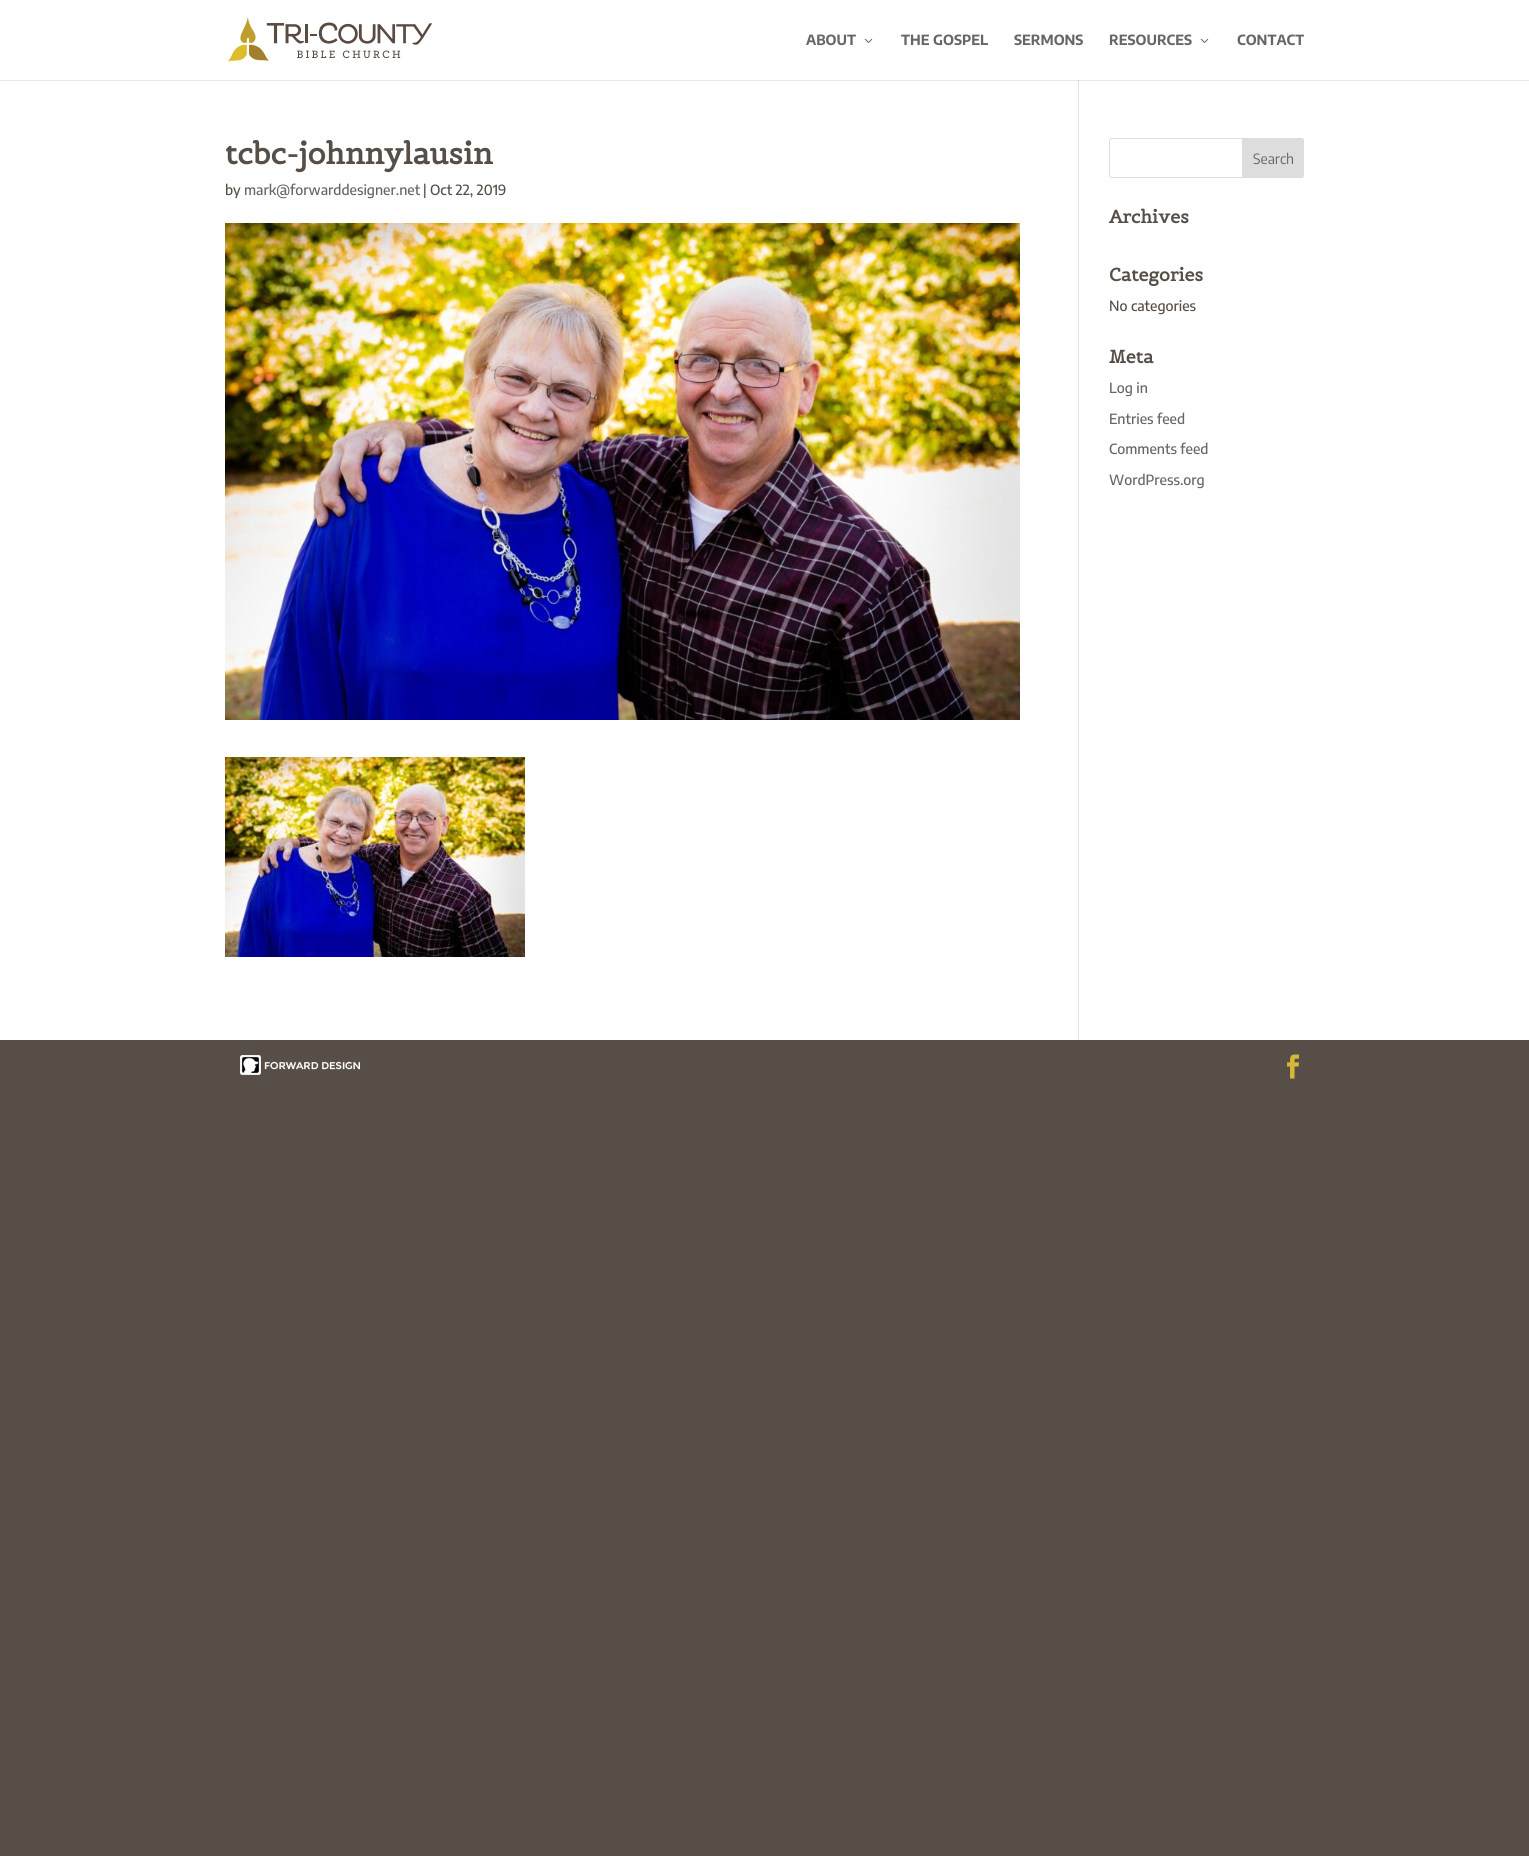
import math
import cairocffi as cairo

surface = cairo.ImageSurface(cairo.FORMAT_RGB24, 1529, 1856)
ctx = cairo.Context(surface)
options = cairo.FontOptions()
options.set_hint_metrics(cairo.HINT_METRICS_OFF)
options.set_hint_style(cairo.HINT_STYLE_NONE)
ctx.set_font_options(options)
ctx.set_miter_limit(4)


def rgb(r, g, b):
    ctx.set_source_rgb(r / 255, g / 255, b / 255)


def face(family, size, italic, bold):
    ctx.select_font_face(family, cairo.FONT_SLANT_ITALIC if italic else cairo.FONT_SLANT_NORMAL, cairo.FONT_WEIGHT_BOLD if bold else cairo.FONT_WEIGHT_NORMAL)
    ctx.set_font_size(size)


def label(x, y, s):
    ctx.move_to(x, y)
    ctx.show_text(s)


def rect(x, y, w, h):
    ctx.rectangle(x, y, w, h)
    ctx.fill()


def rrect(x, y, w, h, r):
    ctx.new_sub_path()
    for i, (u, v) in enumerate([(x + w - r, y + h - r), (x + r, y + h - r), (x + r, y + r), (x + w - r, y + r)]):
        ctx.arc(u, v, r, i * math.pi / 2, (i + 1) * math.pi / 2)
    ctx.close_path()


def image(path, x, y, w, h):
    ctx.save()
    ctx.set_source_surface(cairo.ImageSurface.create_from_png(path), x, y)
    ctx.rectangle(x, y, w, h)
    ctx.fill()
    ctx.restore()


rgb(87, 79, 71)
ctx.paint()
rgb(255, 255, 255)
rect(0, 0, 1529, 80)
image('image0.png', 228, 18, 204, 44)
face('Encode Sans Condensed', 14, 0, 1)
rgb(102, 102, 102)
label(806, 45, 'ABOUT')
image('image1.png', 864, 38, 9, 5)
label(901, 45, 'THE GOSPEL')
label(1014, 45, 'SERMONS')
label(1109, 45, 'RESOURCES')
image('image1.png', 1200, 38, 9, 5)
label(1237, 45, 'CONTACT')
rgb(255, 255, 255)
rect(0, 81, 1529, 959)
rgb(230, 230, 230)
rect(0, 80, 1529, 1)
rgb(226, 226, 226)
rect(1078, 80, 1, 960)
rgb(203, 203, 203)
rect(1078, 80, 1, 1)
face('Belgrano', 30, 0, 1)
rgb(87, 79, 71)
label(225, 164, 'tcbc-johnnylausin')
face('Encode Sans Condensed Medium', 14, 0, 0)
label(225, 195, 'by')
rgb(102, 102, 102)
label(244, 195, 'mark@forwarddesigner.net')
rgb(87, 79, 71)
label(423, 195, '| Oct 22, 2019')
image('image2.png', 225, 223, 795, 497)
image('image3.png', 225, 757, 300, 200)
rrect(1109.5, 138.5, 194, 39, 2.5)
rgb(221, 221, 221)
ctx.set_line_width(1)
ctx.stroke()
ctx.new_path()
ctx.move_to(1242.5, 138.5)
ctx.line_to(1301, 138.5)
ctx.curve_to(1302.5, 138.5, 1303.5, 139.5, 1303.5, 141)
ctx.line_to(1303.5, 175)
ctx.curve_to(1303.5, 176.5, 1302.5, 177.5, 1301, 177.5)
ctx.line_to(1242.5, 177.5)
ctx.close_path()
ctx.fill_preserve()
ctx.stroke()
face('Encode Sans Condensed', 14, 0, 0)
rgb(102, 102, 102)
label(1253, 164, 'Search')
face('Belgrano', 18, 0, 1)
rgb(87, 79, 71)
label(1109, 223, 'Archives')
label(1109, 281, 'Categories')
face('Encode Sans Condensed Medium', 14, 0, 0)
label(1109, 311, 'No categories')
face('Belgrano', 18, 0, 1)
label(1109, 363, 'Meta')
face('Encode Sans Condensed Medium', 14, 0, 0)
rgb(102, 102, 102)
label(1109, 393, 'Log in')
label(1109, 424, 'Entries feed')
label(1109, 454, 'Comments feed')
label(1109, 485, 'WordPress.org')
image('image4.png', 240, 1055, 120, 20)
image('image5.png', 1287, 1054, 12, 25)
surface.write_to_png('render.png')
